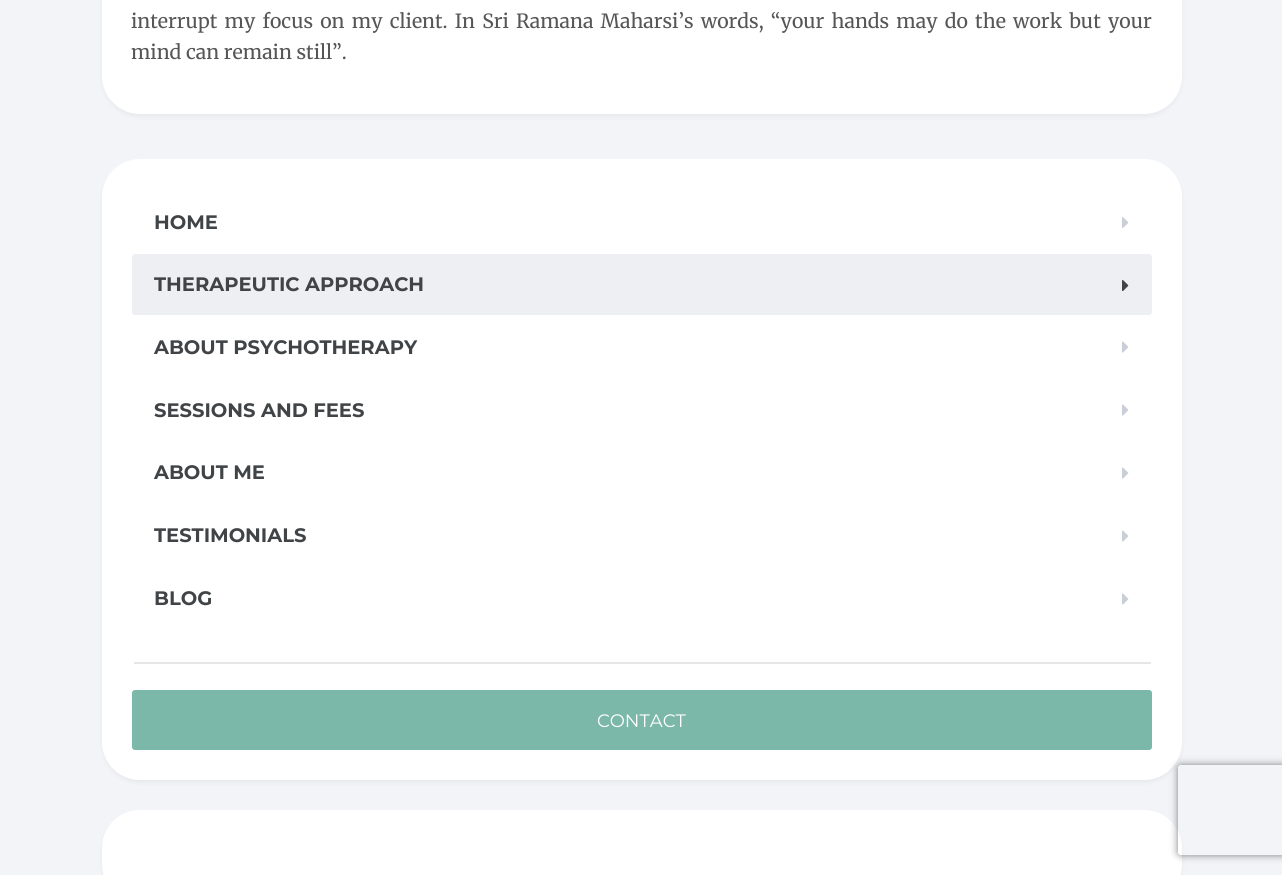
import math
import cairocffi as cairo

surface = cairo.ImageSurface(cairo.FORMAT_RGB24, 1282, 875)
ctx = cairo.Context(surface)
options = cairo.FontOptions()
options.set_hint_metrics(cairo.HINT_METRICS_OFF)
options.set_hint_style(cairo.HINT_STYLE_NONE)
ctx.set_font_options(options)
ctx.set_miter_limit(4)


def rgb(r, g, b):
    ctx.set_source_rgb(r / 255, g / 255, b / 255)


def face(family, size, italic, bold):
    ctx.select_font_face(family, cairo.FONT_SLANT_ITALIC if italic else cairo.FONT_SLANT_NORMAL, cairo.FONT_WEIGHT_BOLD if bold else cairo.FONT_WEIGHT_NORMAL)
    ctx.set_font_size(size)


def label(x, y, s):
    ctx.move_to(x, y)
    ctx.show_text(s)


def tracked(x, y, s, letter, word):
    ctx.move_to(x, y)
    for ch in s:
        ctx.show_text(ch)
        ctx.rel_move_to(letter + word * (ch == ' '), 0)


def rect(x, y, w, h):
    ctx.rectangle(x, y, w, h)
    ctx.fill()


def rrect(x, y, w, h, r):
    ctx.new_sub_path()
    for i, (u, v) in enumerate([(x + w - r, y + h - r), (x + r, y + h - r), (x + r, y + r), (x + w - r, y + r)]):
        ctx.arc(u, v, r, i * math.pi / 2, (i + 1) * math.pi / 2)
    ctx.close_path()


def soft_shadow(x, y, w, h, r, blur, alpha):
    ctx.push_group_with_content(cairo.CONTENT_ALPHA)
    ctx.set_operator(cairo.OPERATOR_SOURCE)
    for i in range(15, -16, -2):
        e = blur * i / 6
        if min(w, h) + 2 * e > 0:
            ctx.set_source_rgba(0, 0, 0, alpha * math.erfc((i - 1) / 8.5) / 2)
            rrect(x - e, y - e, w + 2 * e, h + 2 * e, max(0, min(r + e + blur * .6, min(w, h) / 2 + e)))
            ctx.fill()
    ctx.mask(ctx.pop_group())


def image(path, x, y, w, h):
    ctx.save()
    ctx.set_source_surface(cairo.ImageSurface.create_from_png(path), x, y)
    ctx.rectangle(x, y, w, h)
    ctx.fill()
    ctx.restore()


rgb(242, 244, 247)
ctx.paint()
rgb(31, 31, 31)
soft_shadow(102, -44, 1080, 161, 38, 2, 0.05)
rgb(255, 255, 255)
rrect(102, -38, 1080, 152, 38)
ctx.fill()
face('Merriweather', 19.5, 0, 0)
rgb(86, 86, 86)
tracked(131, 28, 'interrupt my focus on my client. In Sri Ramana Maharsi’s words, “your hands may do the work but your', 0, 2.6)
label(131, 59, 'mind can remain still”.')
rgb(31, 31, 31)
soft_shadow(102, 162, 1080, 621, 38, 2, 0.05)
rgb(255, 255, 255)
rrect(102, 159, 1080, 621, 38)
ctx.fill()
face('Montserrat', 19.5, 0, 1)
rgb(65, 68, 71)
label(154, 229, 'HOME')
image('image0.png', 1122, 217, 7, 11)
rgb(237, 239, 242)
rrect(132, 254, 1020, 61, 3)
ctx.fill()
rgb(65, 68, 71)
label(154, 291, 'THERAPEUTIC APPROACH')
image('image1.png', 1122, 280, 7, 12)
label(154, 354, 'ABOUT PSYCHOTHERAPY')
image('image2.png', 1122, 341, 7, 12)
label(154, 417, 'SESSIONS AND FEES')
image('image2.png', 1122, 404, 7, 12)
label(154, 479, 'ABOUT ME')
image('image2.png', 1122, 467, 7, 12)
label(154, 542, 'TESTIMONIALS')
image('image2.png', 1122, 530, 7, 12)
label(154, 605, 'BLOG')
image('image2.png', 1122, 593, 7, 12)
rgb(123, 184, 170)
rrect(133, 691, 1018, 58, 2)
ctx.fill_preserve()
ctx.stroke()
rgb(230, 230, 230)
rect(134, 662, 1017, 2)
face('Montserrat', 18, 0, 0)
rgb(255, 255, 255)
label(597, 727, 'CONTACT')
rgb(31, 31, 31)
soft_shadow(102, 813, 1080, 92, 38, 2, 0.05)
rgb(255, 255, 255)
rrect(102, 810, 1080, 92, 38)
ctx.fill()
ctx.save()
ctx.set_fill_rule(cairo.FILL_RULE_EVEN_ODD)
ctx.new_path()
ctx.move_to(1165, 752)
ctx.line_to(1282, 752)
ctx.line_to(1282, 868)
ctx.line_to(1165, 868)
ctx.close_path()
ctx.move_to(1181, 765)
ctx.line_to(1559, 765)
ctx.curve_to(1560.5, 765, 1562, 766.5, 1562, 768)
ctx.line_to(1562, 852)
ctx.curve_to(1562, 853.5, 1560.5, 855, 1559, 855)
ctx.line_to(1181, 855)
ctx.curve_to(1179.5, 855, 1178, 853.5, 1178, 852)
ctx.line_to(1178, 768)
ctx.curve_to(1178, 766.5, 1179.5, 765, 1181, 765)
ctx.close_path()
ctx.clip()
rgb(128, 128, 128)
soft_shadow(1178, 765, 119, 90, 3, 4, 1)
ctx.restore()
surface.write_to_png('render.png')
